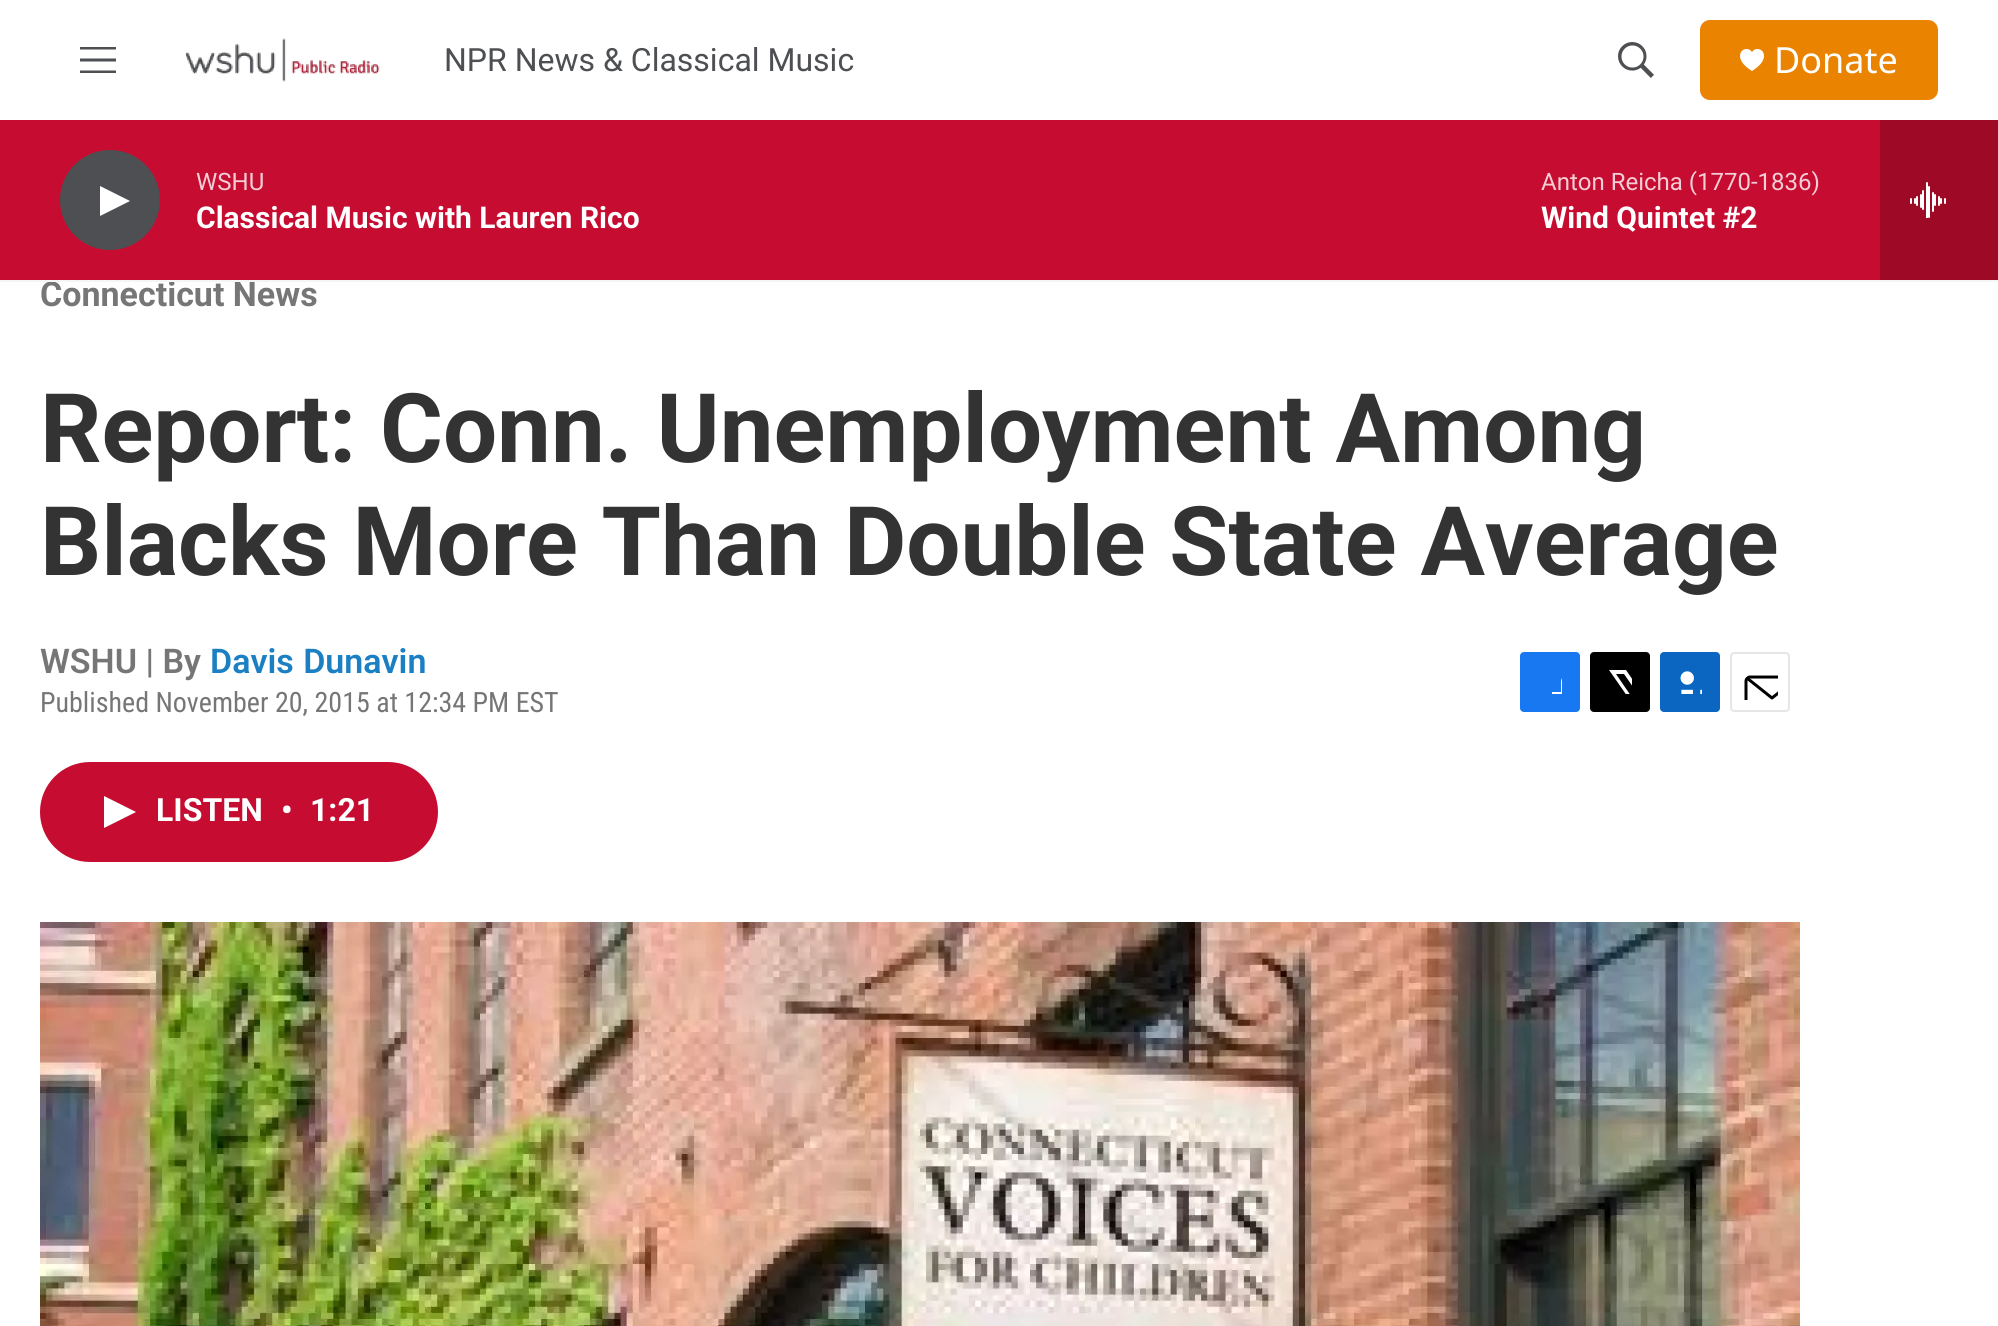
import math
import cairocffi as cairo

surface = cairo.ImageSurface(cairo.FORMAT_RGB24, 1998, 1326)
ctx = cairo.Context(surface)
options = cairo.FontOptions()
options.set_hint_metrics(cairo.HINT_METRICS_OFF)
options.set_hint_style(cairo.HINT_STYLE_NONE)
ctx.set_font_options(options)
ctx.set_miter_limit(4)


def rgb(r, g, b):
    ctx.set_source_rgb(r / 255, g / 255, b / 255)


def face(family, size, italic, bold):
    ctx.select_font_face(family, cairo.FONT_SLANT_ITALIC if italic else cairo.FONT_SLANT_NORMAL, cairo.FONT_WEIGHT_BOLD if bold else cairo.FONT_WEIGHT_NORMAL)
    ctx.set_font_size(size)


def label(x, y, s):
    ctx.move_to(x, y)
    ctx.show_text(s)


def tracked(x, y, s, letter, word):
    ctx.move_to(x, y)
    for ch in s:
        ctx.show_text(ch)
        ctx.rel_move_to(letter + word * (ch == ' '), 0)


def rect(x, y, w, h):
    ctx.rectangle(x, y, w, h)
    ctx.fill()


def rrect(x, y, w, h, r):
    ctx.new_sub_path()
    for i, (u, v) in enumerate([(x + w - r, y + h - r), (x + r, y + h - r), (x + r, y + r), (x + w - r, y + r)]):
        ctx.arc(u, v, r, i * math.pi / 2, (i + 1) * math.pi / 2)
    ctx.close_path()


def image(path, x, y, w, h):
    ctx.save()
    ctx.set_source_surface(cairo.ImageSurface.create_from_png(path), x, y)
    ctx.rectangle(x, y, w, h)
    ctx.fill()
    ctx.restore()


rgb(255, 255, 255)
ctx.paint()
face('Roboto', 34, 0, 1)
rgb(118, 118, 118)
label(40, 306, 'Connecticut News')
rgb(245, 245, 245)
rect(0, 280, 1998, 2)
rgb(77, 79, 83)
ctx.set_fill_rule(cairo.FILL_RULE_EVEN_ODD)
ctx.new_path()
ctx.move_to(80, 61.5)
ctx.line_to(80, 58.5)
ctx.line_to(116, 58.5)
ctx.line_to(116, 61.5)
ctx.close_path()
ctx.move_to(80, 49.5)
ctx.line_to(80, 47)
ctx.line_to(116, 47)
ctx.line_to(116, 49.5)
ctx.close_path()
ctx.move_to(80, 73)
ctx.line_to(80, 70.5)
ctx.line_to(116, 70.5)
ctx.line_to(116, 73)
ctx.close_path()
ctx.fill()
image('image0.png', 185, 38, 195, 44)
face('Roboto', 32, 0, 0)
label(444, 71, 'NPR News & Classical Music')
image('image1.png', 1618, 42, 36, 36)
rgb(233, 131, 0)
rrect(1700, 20, 238, 80, 10)
ctx.fill()
image('image2.png', 1740, 49, 24, 22)
face('Noto Sans', 36, 0, 0)
rgb(255, 255, 255)
label(1774, 73, 'Donate')
rgb(198, 12, 48)
rect(0, 120, 1880, 160)
rgb(77, 79, 83)
ctx.new_path()
ctx.arc(110, 200, 50, 0, 2 * math.pi)
ctx.fill()
rgb(255, 255, 255)
ctx.set_fill_rule(cairo.FILL_RULE_WINDING)
ctx.new_path()
ctx.move_to(100, 186)
ctx.line_to(130, 201)
ctx.line_to(100, 216)
ctx.close_path()
ctx.fill()
face('Roboto', 24, 0, 0)
rgb(244, 206, 214)
label(196, 190, 'WSHU')
face('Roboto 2', 30, 0, 1)
rgb(255, 255, 255)
label(196, 228, 'Classical Music with Lauren Rico')
face('Roboto', 24, 0, 0)
rgb(244, 206, 214)
label(1541, 190, 'Anton Reicha (1770-1836)')
face('Roboto 2', 30, 0, 1)
rgb(255, 255, 255)
label(1541, 228, 'Wind Quintet #2')
rgb(158, 10, 38)
rect(1880, 120, 118, 160)
image('image3.png', 1910, 182, 36, 36)
face('Roboto', 96, 0, 1)
rgb(51, 51, 51)
label(40, 462, 'Report: Conn. Unemployment Among')
label(40, 575, 'Blacks More Than Double State Average')
face('Roboto SemiBold', 34, 0, 0)
rgb(118, 118, 118)
label(40, 673, 'WSHU | By')
rgb(26, 127, 195)
tracked(210, 673, 'Davis Dunavin', 0, 1)
face('Roboto Condensed', 28, 0, 0)
rgb(118, 118, 118)
label(40, 712, 'Published November 20, 2015 at 12:34 PM EST')
rgb(23, 120, 242)
rrect(1520, 652, 60, 60, 4)
ctx.fill()
ctx.save()
ctx.rectangle(1538, 670, 24, 24)
ctx.clip()
rgb(255, 255, 255)
ctx.new_path()
ctx.move_to(1571, 712)
ctx.line_to(1561, 712)
ctx.line_to(1561, 702)
ctx.line_to(1552, 702)
ctx.line_to(1552, 692)
ctx.line_to(1561, 692)
ctx.line_to(1561, 681)
ctx.curve_to(1563, 672, 1572, 670, 1580, 671)
ctx.line_to(1580, 680)
ctx.curve_to(1569, 680, 1571, 683, 1571, 692)
ctx.line_to(1580, 692)
ctx.line_to(1580, 697)
ctx.line_to(1579, 702)
ctx.line_to(1571, 702)
ctx.close_path()
ctx.fill()
ctx.restore()
rgb(0, 0, 0)
rrect(1590, 652, 60, 60, 4)
ctx.fill()
ctx.save()
ctx.rectangle(1608, 670, 24, 24)
ctx.clip()
rgb(255, 255, 255)
ctx.new_path()
ctx.move_to(1644, 695)
ctx.line_to(1650, 704)
ctx.curve_to(1650, 706, 1651, 709, 1649, 710)
ctx.line_to(1624, 674)
ctx.line_to(1616, 674)
ctx.line_to(1642, 712)
ctx.line_to(1637, 712)
ctx.line_to(1634, 707)
ctx.line_to(1630, 712)
ctx.line_to(1624, 712)
ctx.line_to(1632, 703)
ctx.line_to(1609, 670)
ctx.line_to(1626, 670)
ctx.line_to(1641, 692)
ctx.line_to(1650, 682)
ctx.line_to(1650, 688)
ctx.close_path()
ctx.fill()
ctx.restore()
rgb(10, 102, 193)
rrect(1660, 652, 60, 60, 4)
ctx.fill()
image('image4.png', 1680, 671, 22, 23)
rrect(1731, 653, 58, 58, 3)
rgb(230, 230, 230)
ctx.stroke()
ctx.save()
ctx.rectangle(1742, 664, 36, 36)
ctx.clip()
ctx.new_path()
ctx.move_to(1798, 708)
ctx.curve_to(1798, 710, 1796, 711.5, 1794, 711.5)
ctx.line_to(1750, 711.5)
ctx.curve_to(1748, 711.5, 1746, 710, 1746, 708)
ctx.line_to(1746, 681)
ctx.curve_to(1746, 679, 1748, 677, 1750, 677)
ctx.line_to(1794, 677)
ctx.curve_to(1796, 677, 1798, 679, 1798, 681)
ctx.close_path()
ctx.move_to(1796.5, 678.5)
ctx.line_to(1772, 698)
ctx.line_to(1747.5, 678.5)
rgb(0, 0, 0)
ctx.set_line_width(3)
ctx.set_line_cap(cairo.LINE_CAP_ROUND)
ctx.set_line_join(cairo.LINE_JOIN_ROUND)
ctx.stroke()
ctx.restore()
rgb(198, 12, 48)
rrect(40, 762, 398, 100, 50)
ctx.fill()
rgb(255, 255, 255)
ctx.new_path()
ctx.move_to(104, 796)
ctx.line_to(136, 812)
ctx.line_to(104, 828)
ctx.close_path()
ctx.fill()
face('Roboto 2', 32, 0, 1)
label(156, 821, 'LISTEN')
label(281, 821, '•')
label(310, 821, '1:21')
image('image5.png', 40, 922, 1760, 404)
surface.write_to_png('render.png')
